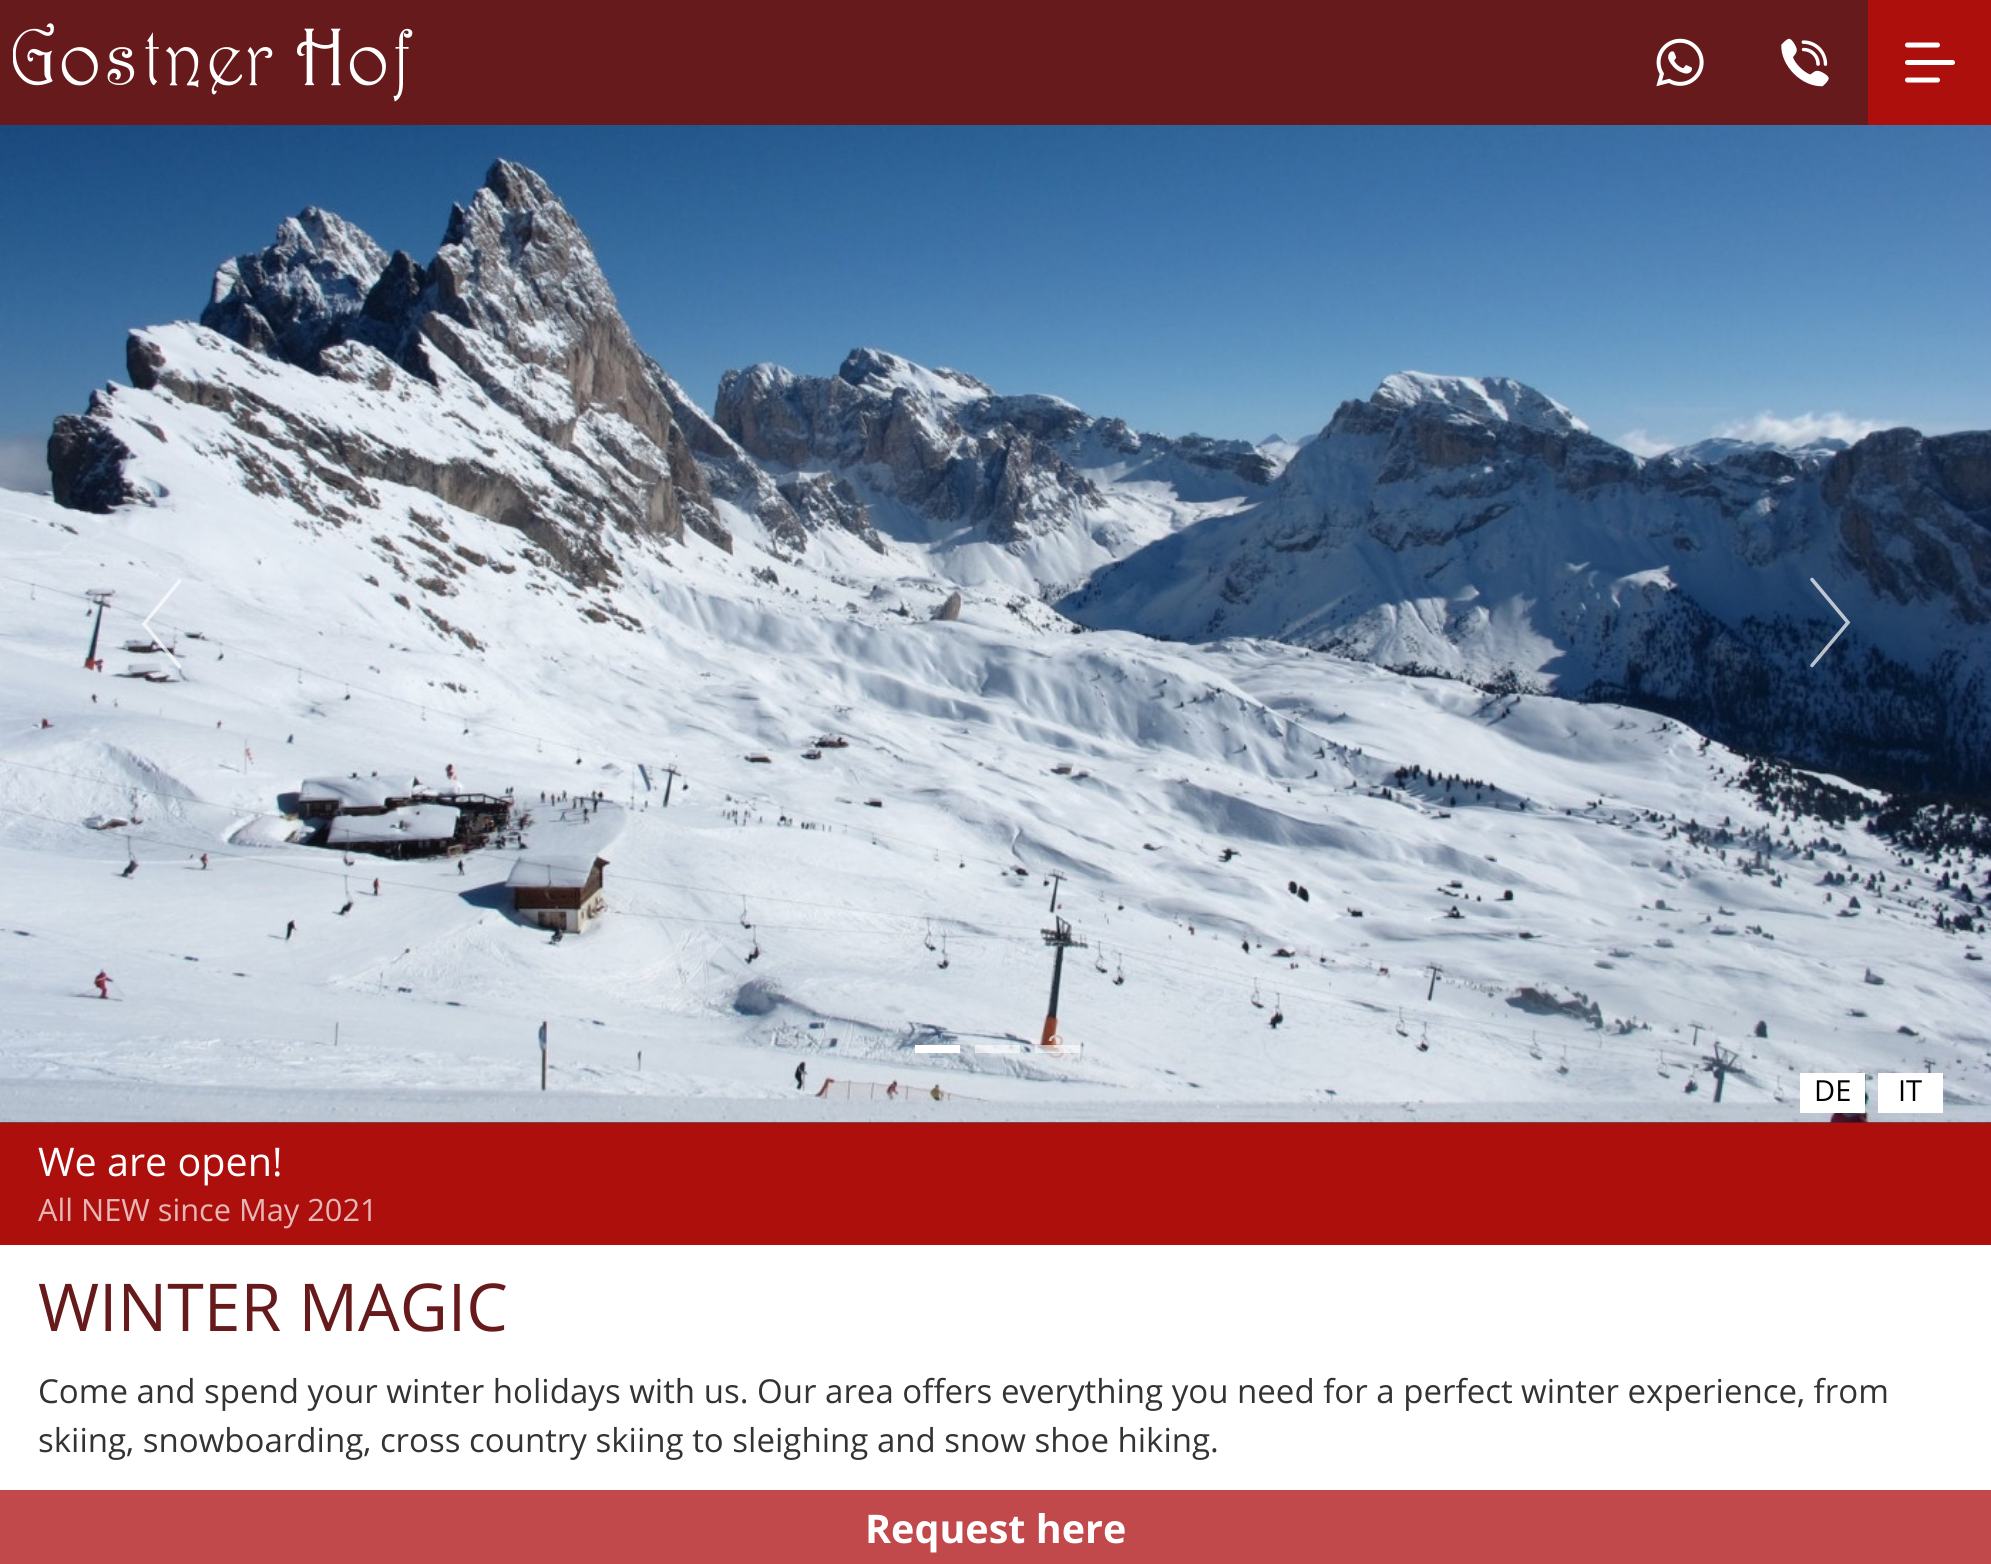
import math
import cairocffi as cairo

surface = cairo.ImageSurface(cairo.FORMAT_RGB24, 1991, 1564)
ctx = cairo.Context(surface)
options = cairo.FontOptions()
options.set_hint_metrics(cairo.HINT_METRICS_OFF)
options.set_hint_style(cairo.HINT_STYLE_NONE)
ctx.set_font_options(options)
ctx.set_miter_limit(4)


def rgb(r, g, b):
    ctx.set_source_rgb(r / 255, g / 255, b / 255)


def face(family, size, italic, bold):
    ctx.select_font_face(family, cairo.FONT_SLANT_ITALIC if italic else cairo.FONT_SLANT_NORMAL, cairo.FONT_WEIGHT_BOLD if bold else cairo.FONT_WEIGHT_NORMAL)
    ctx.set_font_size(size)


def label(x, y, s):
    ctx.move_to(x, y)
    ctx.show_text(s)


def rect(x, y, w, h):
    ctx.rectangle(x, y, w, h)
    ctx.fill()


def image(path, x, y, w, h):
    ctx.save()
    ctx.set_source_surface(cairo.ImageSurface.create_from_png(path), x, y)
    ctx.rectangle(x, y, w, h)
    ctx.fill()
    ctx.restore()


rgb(255, 255, 255)
ctx.paint()
rgb(103, 26, 28)
rect(0, 0, 1868, 125)
image('image0.png', 13, 23, 400, 79)
image('image1.png', 1656, 38, 48, 49)
image('image2.png', 1781, 38, 48, 49)
rgb(173, 15, 12)
rect(1868, 0, 123, 125)
ctx.new_path()
ctx.move_to(1907.5, 45)
ctx.line_to(1937.5, 45)
ctx.move_to(1907.5, 62.5)
ctx.line_to(1952.5, 62.5)
ctx.move_to(1907.5, 80)
ctx.line_to(1937.5, 80)
rgb(255, 255, 255)
ctx.set_line_width(5)
ctx.set_line_cap(cairo.LINE_CAP_ROUND)
ctx.stroke()
gradient = cairo.LinearGradient(996, 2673, 996, 0)
gradient.add_color_stop_rgba(0.09, 1, 1, 1, 1)
gradient.add_color_stop_rgba(0.37, 0.388, 0.098, 0.114, 1)
ctx.set_source(gradient)
rect(0, 1122, 1991, 1)
image('image3.png', 0, 125, 1991, 998)
ctx.new_path()
ctx.move_to(179.5, 666.5)
ctx.line_to(144, 624)
ctx.line_to(179.5, 581)
ctx.set_source_rgba(1, 1, 1, 0.7)
ctx.set_line_width(3.6)
ctx.stroke()
ctx.new_path()
ctx.move_to(1812, 579.5)
ctx.line_to(1848, 622.5)
ctx.line_to(1812, 665.5)
ctx.stroke()
face('Liberation Sans', 33, 0, 0)
rgb(153, 170, 186)
label(927, 1058, '1')
rgb(255, 255, 255)
rect(915, 1045, 45, 8)
ctx.set_source_rgba(1, 1, 1, 0.6)
rect(975, 1045, 45, 8)
rgb(203, 189, 189)
label(1047, 1058, '3')
ctx.set_source_rgba(1, 1, 1, 0.6)
rect(1035, 1045, 45, 8)
rgb(255, 255, 255)
rect(1800, 1073, 65, 40)
face('Open Sans', 29, 0, 0)
rgb(0, 0, 0)
label(1814, 1101, 'DE')
rgb(255, 255, 255)
rect(1878, 1073, 65, 40)
rgb(0, 0, 0)
label(1898, 1101, 'IT')
rgb(173, 15, 12)
rect(0, 1123, 1991, 122)
face('Open Sans', 39.5, 0, 0)
rgb(255, 255, 255)
label(38, 1176, 'We are open!')
face('Open Sans', 30.75, 0, 0)
rgb(230, 183, 182)
label(38, 1221, 'All NEW since May 2021')
face('Open Sans', 66, 0, 0)
rgb(103, 26, 28)
label(38, 1331, 'WINTER MAGIC')
face('Open Sans', 33, 0, 0)
rgb(51, 51, 51)
label(38, 1403, 'Come and spend your winter holidays with us. Our area offers everything you need for a perfect winter experience, from')
label(38, 1452, 'skiing, snowboarding, cross country skiing to sleighing and snow shoe hiking.')
ctx.set_source_rgba(0.698, 0.106, 0.118, 0.8)
rect(0, 1490, 1991, 74)
face('Open Sans', 39.5, 0, 1)
rgb(255, 255, 255)
label(865, 1543, 'Request here')
surface.write_to_png('render.png')
